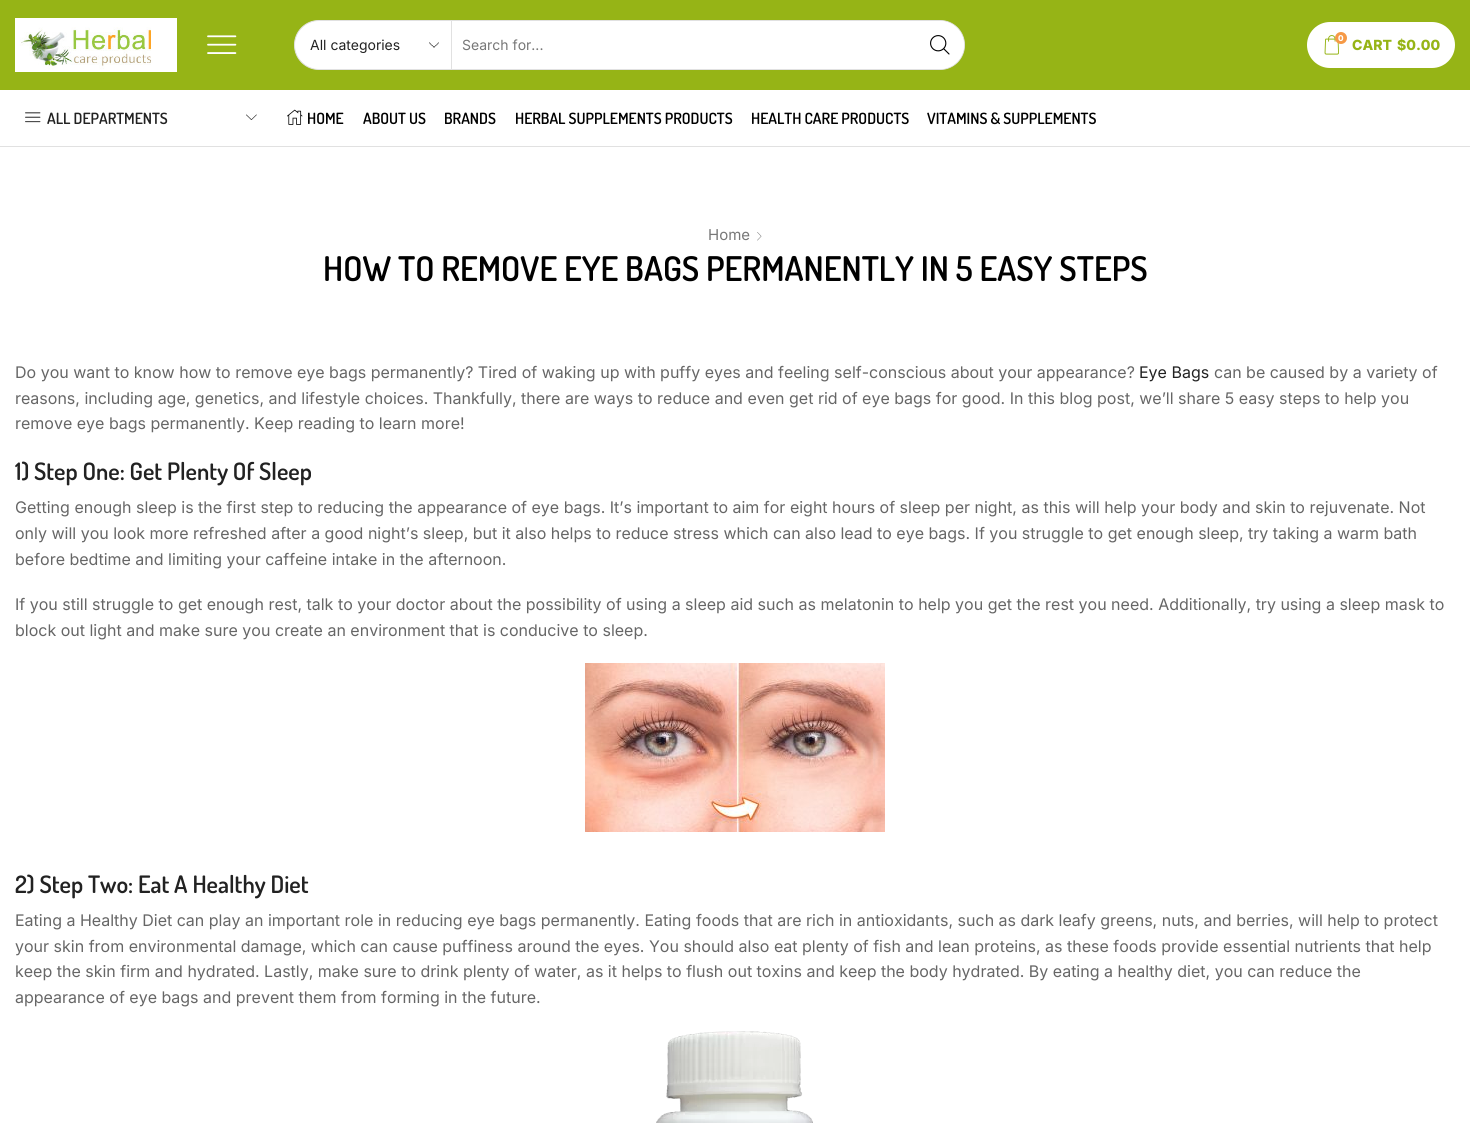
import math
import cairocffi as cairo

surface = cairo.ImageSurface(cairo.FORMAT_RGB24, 1470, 1123)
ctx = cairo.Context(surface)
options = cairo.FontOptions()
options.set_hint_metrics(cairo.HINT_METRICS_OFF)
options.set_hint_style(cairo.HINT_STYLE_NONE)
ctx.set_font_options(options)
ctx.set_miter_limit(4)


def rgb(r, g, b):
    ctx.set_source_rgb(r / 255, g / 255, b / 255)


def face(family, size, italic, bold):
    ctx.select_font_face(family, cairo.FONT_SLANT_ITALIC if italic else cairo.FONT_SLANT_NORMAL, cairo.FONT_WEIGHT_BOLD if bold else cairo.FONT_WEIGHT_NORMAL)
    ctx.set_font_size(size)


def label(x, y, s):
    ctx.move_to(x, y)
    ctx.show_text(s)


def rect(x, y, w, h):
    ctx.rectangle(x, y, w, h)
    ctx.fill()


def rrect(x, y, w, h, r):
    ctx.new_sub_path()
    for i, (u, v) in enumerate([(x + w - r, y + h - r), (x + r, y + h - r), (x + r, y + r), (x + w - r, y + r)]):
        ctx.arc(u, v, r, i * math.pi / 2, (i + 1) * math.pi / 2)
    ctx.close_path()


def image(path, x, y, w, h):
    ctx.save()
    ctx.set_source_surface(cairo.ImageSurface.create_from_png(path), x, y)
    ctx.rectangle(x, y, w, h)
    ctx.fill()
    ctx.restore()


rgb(255, 255, 255)
ctx.paint()
rgb(150, 180, 22)
rect(0, 0, 1470, 90)
image('image0.png', 15, 18, 162, 54)
image('image1.png', 207, 35, 30, 19)
rgb(255, 255, 255)
rrect(294.5, 20.5, 670, 49, 24.5)
ctx.fill_preserve()
rgb(225, 225, 225)
ctx.set_line_width(1)
ctx.stroke()
image('image2.png', 429, 42, 10, 6)
rect(451, 21, 1, 48)
face('Inter', 14, 0, 0)
rgb(34, 34, 34)
label(310, 50, 'All categories')
rgb(119, 119, 119)
label(462, 50, 'Search for...')
rgb(255, 255, 255)
ctx.new_path()
ctx.arc(940, 45, 24, 0, 2 * math.pi)
ctx.fill()
image('image3.png', 930, 35, 20, 20)
rrect(1307, 22, 148, 46, 23)
ctx.fill()
image('image4.png', 1324, 35, 15, 20)
rgb(246, 153, 70)
ctx.arc(1341, 38, 6, 0, 2 * math.pi)
ctx.fill()
face('Inter ExtraBold', 8, 0, 0)
rgb(255, 255, 255)
label(1338, 41, '0')
face('Inter ExtraBold', 14, 0, 0)
rgb(150, 180, 22)
label(1352, 50, 'CART')
label(1397, 50, '$0.00')
rgb(225, 225, 225)
rect(0, 146, 1470, 1)
image('image5.png', 25, 112, 16, 11)
face('Dosis SemiBold', 15.5, 0, 0)
rgb(34, 34, 34)
label(47, 124, 'ALL DEPARTMENTS')
image('image6.png', 246, 114, 11, 6)
image('image7.png', 287, 109, 16, 16)
rgb(0, 0, 0)
label(307, 124, 'HOME')
label(363, 124, 'ABOUT US')
label(444, 124, 'BRANDS')
label(515, 124, 'HERBAL SUPPLEMENTS PRODUCTS')
label(751, 124, 'HEALTH CARE PRODUCTS')
label(927, 124, 'VITAMINS & SUPPLEMENTS')
face('Inter', 15, 0, 0)
rgb(119, 119, 119)
label(708, 240, 'Home')
image('image8.png', 757, 232, 5, 9)
face('Dosis SemiBold', 34, 0, 0)
rgb(0, 0, 0)
label(323, 281, 'HOW TO REMOVE EYE BAGS PERMANENTLY IN 5 EASY STEPS')
face('Inter', 16, 0, 0)
rgb(102, 102, 102)
label(15, 378, 'Do you want to know how to remove eye bags permanently? Tired of waking up with puffy eyes and feeling self-conscious about your appearance?')
rgb(34, 34, 34)
label(1139, 378, 'Eye Bags')
rgb(102, 102, 102)
label(1214, 378, 'can be caused by a variety of')
label(15, 404, 'reasons, including age, genetics, and lifestyle choices. Thankfully, there are ways to reduce and even get rid of eye bags for good. In this blog post, we’ll share 5 easy steps to help you')
label(15, 429, 'remove eye bags permanently. Keep reading to learn more!')
face('Dosis SemiBold', 24, 0, 0)
rgb(34, 34, 34)
label(15, 480, '1) Step One: Get Plenty Of Sleep')
face('Inter', 16, 0, 0)
rgb(102, 102, 102)
label(15, 513, 'Getting enough sleep is the first step to reducing the appearance of eye bags. It’s important to aim for eight hours of sleep per night, as this will help your body and skin to rejuvenate. Not')
label(15, 539, 'only will you look more refreshed after a good night’s sleep, but it also helps to reduce stress which can also lead to eye bags. If you struggle to get enough sleep, try taking a warm bath')
label(15, 565, 'before bedtime and limiting your caffeine intake in the afternoon.')
label(15, 610, 'If you still struggle to get enough rest, talk to your doctor about the possibility of using a sleep aid such as melatonin to help you get the rest you need. Additionally, try using a sleep mask to')
label(15, 636, 'block out light and make sure you create an environment that is conducive to sleep.')
image('image9.png', 585, 663, 300, 169)
face('Dosis SemiBold', 24, 0, 0)
rgb(34, 34, 34)
label(15, 893, '2) Step Two: Eat A Healthy Diet')
face('Inter', 16, 0, 0)
rgb(102, 102, 102)
label(15, 926, 'Eating a Healthy Diet can play an important role in reducing eye bags permanently. Eating foods that are rich in antioxidants, such as dark leafy greens, nuts, and berries, will help to protect')
label(15, 952, 'your skin from environmental damage, which can cause puffiness around the eyes. You should also eat plenty of fish and lean proteins, as these foods provide essential nutrients that help')
label(15, 977, 'keep the skin firm and hydrated. Lastly, make sure to drink plenty of water, as it helps to flush out toxins and keep the body hydrated. By eating a healthy diet, you can reduce the')
label(15, 1003, 'appearance of eye bags and prevent them from forming in the future.')
image('image10.png', 656, 1031, 157, 92)
surface.write_to_png('render.png')
